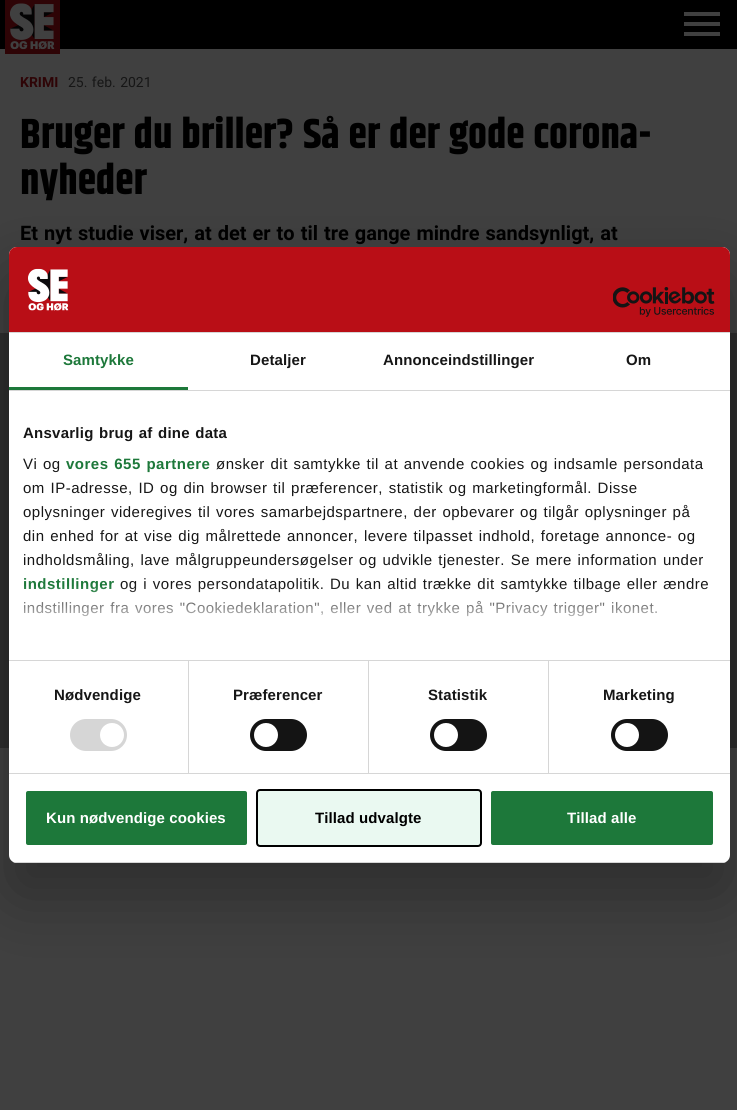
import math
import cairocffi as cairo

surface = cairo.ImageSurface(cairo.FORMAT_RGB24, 737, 1110)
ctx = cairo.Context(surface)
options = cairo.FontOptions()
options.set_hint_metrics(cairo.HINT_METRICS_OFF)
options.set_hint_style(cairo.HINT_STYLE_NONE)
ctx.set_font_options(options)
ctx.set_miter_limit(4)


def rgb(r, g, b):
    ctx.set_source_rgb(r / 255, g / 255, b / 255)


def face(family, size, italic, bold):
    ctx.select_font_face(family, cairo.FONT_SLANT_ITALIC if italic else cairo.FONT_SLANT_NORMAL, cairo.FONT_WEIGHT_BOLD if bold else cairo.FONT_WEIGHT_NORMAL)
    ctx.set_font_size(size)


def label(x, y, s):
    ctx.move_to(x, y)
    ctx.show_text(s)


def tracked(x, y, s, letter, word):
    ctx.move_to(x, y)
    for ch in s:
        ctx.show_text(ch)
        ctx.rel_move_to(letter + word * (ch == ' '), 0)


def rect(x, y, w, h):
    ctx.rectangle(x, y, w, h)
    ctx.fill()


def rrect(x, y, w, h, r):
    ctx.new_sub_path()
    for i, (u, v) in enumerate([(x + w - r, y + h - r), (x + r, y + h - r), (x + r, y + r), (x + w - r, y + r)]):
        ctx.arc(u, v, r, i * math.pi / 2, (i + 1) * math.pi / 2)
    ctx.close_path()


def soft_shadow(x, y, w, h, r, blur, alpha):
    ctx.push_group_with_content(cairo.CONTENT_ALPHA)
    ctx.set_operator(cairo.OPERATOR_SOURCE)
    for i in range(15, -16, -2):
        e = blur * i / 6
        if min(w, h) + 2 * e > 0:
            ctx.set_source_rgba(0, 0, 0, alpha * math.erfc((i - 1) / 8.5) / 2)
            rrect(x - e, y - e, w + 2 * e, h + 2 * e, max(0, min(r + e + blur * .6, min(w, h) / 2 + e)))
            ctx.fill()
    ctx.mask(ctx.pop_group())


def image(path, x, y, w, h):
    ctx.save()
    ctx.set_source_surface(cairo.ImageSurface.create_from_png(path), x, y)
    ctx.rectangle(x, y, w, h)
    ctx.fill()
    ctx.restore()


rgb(64, 64, 64)
ctx.paint()
rgb(0, 0, 0)
rect(0, 0, 737, 49)
image('image0.png', 5, 0, 55, 54)
rgb(64, 64, 64)
ctx.new_path()
ctx.move_to(684, 36)
ctx.line_to(720, 36)
ctx.line_to(720, 32)
ctx.line_to(684, 32)
ctx.close_path()
ctx.move_to(684, 26)
ctx.line_to(720, 26)
ctx.line_to(720, 22)
ctx.line_to(684, 22)
ctx.close_path()
ctx.move_to(684, 12)
ctx.line_to(684, 16)
ctx.line_to(720, 16)
ctx.line_to(720, 12)
ctx.close_path()
ctx.fill()
face('Roboto', 14, 0, 1)
rgb(46, 4, 6)
label(20, 87, 'KRIMI')
face('Roboto', 14, 0, 0)
rgb(22, 22, 22)
tracked(68, 87, '25. feb. 2021', 0, 1)
face('Khand', 42, 0, 1)
rgb(0, 0, 0)
tracked(20, 148, 'Bruger du briller? Så er der gode corona-', 0, 1)
label(20, 194, 'nyheder')
face('Roboto', 20, 0, 1)
tracked(20, 240, 'Et nyt studie viser, at det er to til tre gange mindre sandsynligt, at', 0, 1)
rgb(45, 45, 45)
rect(0, 333, 737, 415)
rgb(0, 0, 0)
soft_shadow(9, 279, 721, 616, 8, 34, 0.3)
rgb(255, 255, 255)
rrect(9, 247, 721, 616, 8)
ctx.fill()
rgb(185, 14, 22)
ctx.new_path()
ctx.move_to(17, 247)
ctx.line_to(722, 247)
ctx.curve_to(726.5, 247, 730, 250.5, 730, 255)
ctx.line_to(730, 332)
ctx.line_to(9, 332)
ctx.line_to(9, 255)
ctx.curve_to(9, 250.5, 12.5, 247, 17, 247)
ctx.close_path()
ctx.fill()
rgb(214, 214, 214)
rect(9, 332, 721, 1)
image('image1.png', 28, 268, 41, 43)
image('image2.png', 613, 287, 102, 30)
rect(9, 390, 721, 1)
rgb(29, 120, 58)
rect(9, 387, 179, 3)
face('Liberation Sans', 15, 0, 1)
tracked(63, 365, 'Samtykke', 0.1, 0)
rgb(22, 22, 22)
tracked(250, 365, 'Detaljer', 0.1, 0)
tracked(383, 365, 'Annonceindstillinger', 0.1, 0)
tracked(626, 365, 'Om', 0.1, 0)
rgb(214, 214, 214)
rect(9, 660, 721, 1)
rgb(22, 22, 22)
tracked(23, 438, 'Ansvarlig brug af dine data', 0.25, 1)
face('Liberation Sans', 15, 0, 0)
tracked(23, 469, 'Vi og', 0.5, 1)
face('Liberation Sans', 15, 0, 1)
rgb(29, 120, 58)
tracked(66, 469, 'vores 655 partnere', 0.5, 1)
face('Liberation Sans', 15, 0, 0)
rgb(22, 22, 22)
tracked(216, 469, 'ønsker dit samtykke til at anvende cookies og indsamle persondata', 0.5, 1)
tracked(23, 493, 'om IP-adresse, ID og din browser til præferencer, statistik og marketingformål. Disse', 0.5, 1)
tracked(23, 517, 'oplysninger videregives til vores samarbejdspartnere, der opbevarer og tilgår oplysninger på', 0.5, 1)
tracked(23, 541, 'din enhed for at vise dig målrettede annoncer, levere tilpasset indhold, foretage annonce- og', 0.5, 1)
tracked(23, 565, 'indholdsmåling, lave målgruppeundersøgelser og udvikle tjenester. Se mere information under', 0.5, 1)
face('Liberation Sans', 15, 0, 1)
rgb(29, 120, 58)
tracked(23, 589, 'indstillinger', 0.5, 0)
face('Liberation Sans', 15, 0, 0)
rgb(22, 22, 22)
tracked(120, 589, 'og i vores persondatapolitik. Du kan altid trække dit samtykke tilbage eller ændre', 0.5, 1)
tracked(23, 613, 'indstillinger fra vores "Cookiedeklaration", eller ved at trykke på "Privacy trigger" ikonet.', 0.5, 1)
gradient = cairo.LinearGradient(363, 660, 363, 585)
gradient.add_color_stop_rgba(0, 1, 1, 1, 1)
gradient.add_color_stop_rgba(0.5, 1, 1, 1, 0.8)
gradient.add_color_stop_rgba(1, 1, 1, 1, 0)
ctx.set_source(gradient)
rect(24, 586, 684, 31)
rgb(214, 214, 214)
rect(9, 773, 721, 1)
rect(188, 661, 1, 112)
face('Liberation Sans', 15, 0, 1)
rgb(22, 22, 22)
tracked(54, 700, 'Nødvendige', 0.1, 0)
rgb(214, 214, 214)
rrect(70, 719, 57, 32, 16)
ctx.fill()
rgb(255, 255, 255)
ctx.arc(112, 735, 12, 0, 2 * math.pi)
ctx.fill()
rgb(214, 214, 214)
rect(368, 661, 1, 112)
rgb(22, 22, 22)
tracked(233, 700, 'Præferencer', 0.1, 0)
rgb(20, 20, 20)
rrect(250, 719, 57, 32, 16)
ctx.fill()
rgb(255, 255, 255)
ctx.arc(266, 735, 12, 0, 2 * math.pi)
ctx.fill()
rgb(214, 214, 214)
rect(548, 661, 1, 112)
rgb(22, 22, 22)
tracked(428, 700, 'Statistik', 0.1, 0)
rgb(20, 20, 20)
rrect(430, 719, 57, 32, 16)
ctx.fill()
rgb(255, 255, 255)
ctx.arc(446, 735, 12, 0, 2 * math.pi)
ctx.fill()
rgb(22, 22, 22)
tracked(603, 700, 'Marketing', 0.1, 0)
rgb(20, 20, 20)
rrect(611, 719, 57, 32, 16)
ctx.fill()
rgb(255, 255, 255)
ctx.arc(627, 735, 12, 0, 2 * math.pi)
ctx.fill()
ctx.save()
rrect(9, 247, 721, 616, 8)
ctx.clip()
rgb(214, 214, 214)
rect(9, 862, 721, 1)
ctx.restore()
rgb(29, 120, 58)
rrect(25, 790, 223, 56, 3)
ctx.fill_preserve()
rgb(255, 255, 255)
ctx.stroke()
tracked(46, 823, 'Kun nødvendige cookies', 0.1, 0)
rgb(234, 249, 241)
rrect(257, 790, 224, 56, 3)
ctx.fill_preserve()
rgb(0, 0, 0)
ctx.stroke()
tracked(315, 823, 'Tillad udvalgte', 0.1, 0)
rgb(29, 120, 58)
rrect(490, 790, 224, 56, 3)
ctx.fill_preserve()
rgb(255, 255, 255)
ctx.stroke()
tracked(567, 823, 'Tillad alle', 0.1, 0)
surface.write_to_png('render.png')
